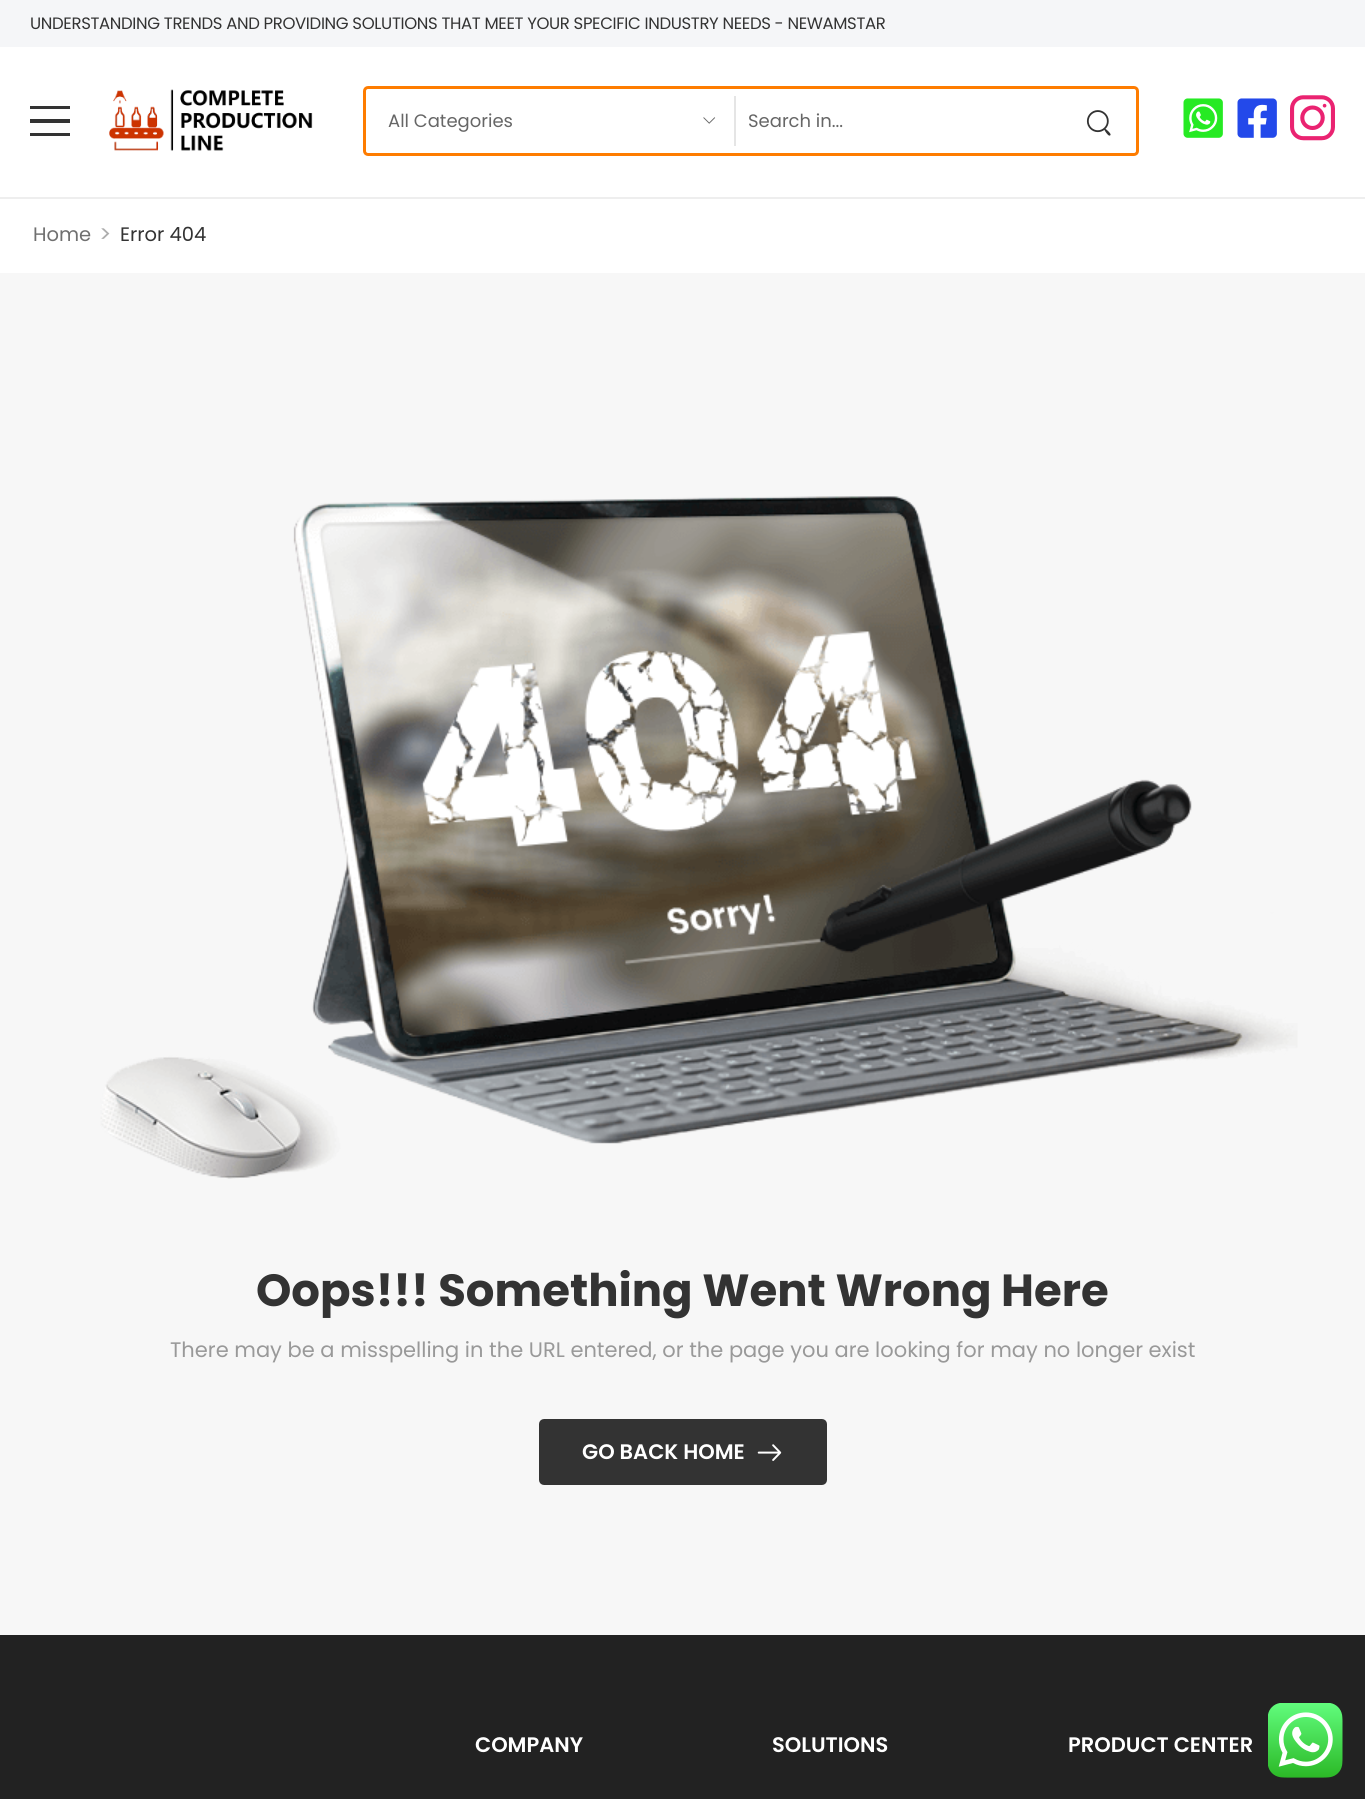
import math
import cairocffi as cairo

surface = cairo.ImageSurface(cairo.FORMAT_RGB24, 1365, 1799)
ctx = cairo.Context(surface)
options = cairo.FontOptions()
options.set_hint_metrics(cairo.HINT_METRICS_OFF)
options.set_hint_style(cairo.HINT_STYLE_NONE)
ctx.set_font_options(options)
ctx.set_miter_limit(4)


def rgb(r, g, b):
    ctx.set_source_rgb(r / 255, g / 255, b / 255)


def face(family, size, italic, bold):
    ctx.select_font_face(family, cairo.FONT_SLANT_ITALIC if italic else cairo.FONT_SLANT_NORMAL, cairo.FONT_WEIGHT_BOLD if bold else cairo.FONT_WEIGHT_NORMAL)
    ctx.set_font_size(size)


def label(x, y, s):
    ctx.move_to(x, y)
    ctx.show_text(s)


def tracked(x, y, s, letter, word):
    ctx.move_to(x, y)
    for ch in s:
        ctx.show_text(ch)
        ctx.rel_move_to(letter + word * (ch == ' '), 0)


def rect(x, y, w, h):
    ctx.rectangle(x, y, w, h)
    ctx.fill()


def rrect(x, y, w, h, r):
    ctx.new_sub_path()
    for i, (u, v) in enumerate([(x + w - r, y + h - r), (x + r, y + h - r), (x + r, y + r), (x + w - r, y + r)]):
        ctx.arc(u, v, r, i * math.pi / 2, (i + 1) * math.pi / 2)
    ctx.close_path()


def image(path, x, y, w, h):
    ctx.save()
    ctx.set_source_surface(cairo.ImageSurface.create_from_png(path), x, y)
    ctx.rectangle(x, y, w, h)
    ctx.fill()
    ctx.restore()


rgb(255, 255, 255)
ctx.paint()
rgb(245, 246, 248)
rect(0, 0, 1365, 47)
face('Poppins', 16.5, 0, 0)
rgb(51, 51, 51)
tracked(30, 29, 'UNDERSTANDING TRENDS AND PROVIDING SOLUTIONS THAT MEET YOUR SPECIFIC INDUSTRY NEEDS - NEWAMSTAR', -0.35, 0)
rgb(238, 238, 238)
rect(0, 197, 1365, 2)
rgb(51, 51, 51)
ctx.new_path()
ctx.move_to(30, 106)
ctx.line_to(30, 109)
ctx.line_to(70, 109)
ctx.line_to(70, 106)
ctx.close_path()
ctx.move_to(30, 119)
ctx.line_to(30, 123)
ctx.line_to(70, 123)
ctx.line_to(70, 119)
ctx.close_path()
ctx.move_to(30, 133)
ctx.line_to(30, 136)
ctx.line_to(70, 136)
ctx.line_to(70, 133)
ctx.close_path()
ctx.fill()
image('image0.png', 109, 89, 204, 62)
rrect(364.5, 87.5, 773, 67, 3.5)
rgb(254, 124, 0)
ctx.set_line_width(3)
ctx.stroke()
face('Poppins', 18, 0, 0)
rgb(102, 102, 102)
label(388, 127, 'All Categories')
image('image1.png', 703, 117, 13, 7)
rgb(229, 229, 229)
rect(734, 96, 2, 50)
rgb(102, 102, 102)
label(748, 127, 'Search in...')
image('image2.png', 1086, 110, 25, 26)
image('image3.png', 1183, 98, 40, 40)
image('image4.png', 1237, 98, 40, 40)
image('image5.png', 1290, 95, 45, 46)
face('Poppins', 19.5, 0, 0)
rgb(112, 112, 112)
label(33, 241, 'Home')
face('Poppins', 23, 0, 0)
rgb(173, 173, 173)
label(99, 242, '>')
face('Poppins', 19.5, 0, 0)
rgb(51, 51, 51)
label(120, 241, 'Error 404')
rgb(247, 247, 247)
rect(0, 273, 1365, 1362)
image('image6.png', 100, 496, 1198, 683)
face('Poppins', 45, 0, 1)
rgb(51, 51, 51)
label(256, 1306, 'Oops!!! Something Went Wrong Here')
face('Poppins', 21, 0, 0)
rgb(153, 153, 153)
label(170, 1357, 'There may be a misspelling in the URL entered, or the page you are looking for may no longer exist')
rgb(51, 51, 51)
rrect(540.5, 1420.5, 285, 63, 3.5)
ctx.fill_preserve()
ctx.stroke()
face('Poppins SemiBold', 21, 0, 0)
rgb(255, 255, 255)
label(582, 1459, 'GO BACK HOME')
image('image7.png', 757, 1444, 25, 17)
rgb(34, 34, 34)
rect(0, 1635, 1365, 164)
rgb(255, 255, 255)
label(475, 1752, 'COMPANY')
label(772, 1752, 'SOLUTIONS')
label(1068, 1752, 'PRODUCT CENTER')
image('image8.png', 1268, 1703, 75, 75)
surface.write_to_png('render.png')
